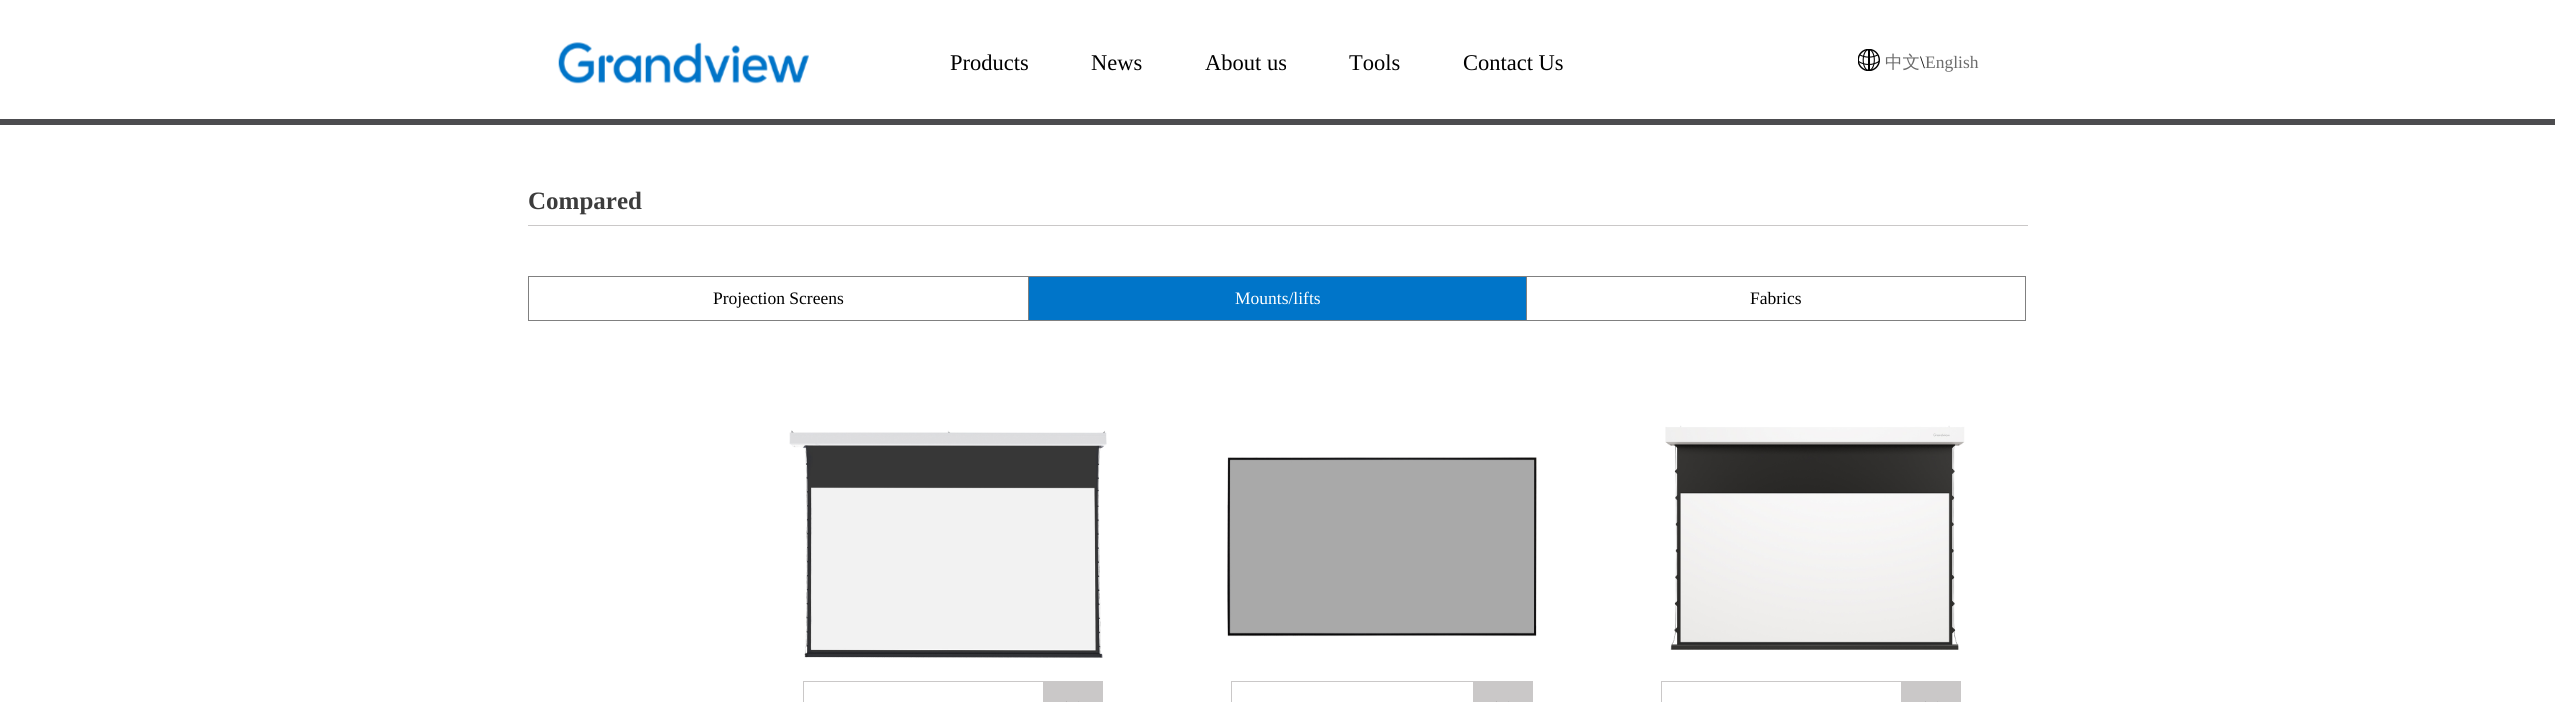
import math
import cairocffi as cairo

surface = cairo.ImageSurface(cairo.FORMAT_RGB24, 2555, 702)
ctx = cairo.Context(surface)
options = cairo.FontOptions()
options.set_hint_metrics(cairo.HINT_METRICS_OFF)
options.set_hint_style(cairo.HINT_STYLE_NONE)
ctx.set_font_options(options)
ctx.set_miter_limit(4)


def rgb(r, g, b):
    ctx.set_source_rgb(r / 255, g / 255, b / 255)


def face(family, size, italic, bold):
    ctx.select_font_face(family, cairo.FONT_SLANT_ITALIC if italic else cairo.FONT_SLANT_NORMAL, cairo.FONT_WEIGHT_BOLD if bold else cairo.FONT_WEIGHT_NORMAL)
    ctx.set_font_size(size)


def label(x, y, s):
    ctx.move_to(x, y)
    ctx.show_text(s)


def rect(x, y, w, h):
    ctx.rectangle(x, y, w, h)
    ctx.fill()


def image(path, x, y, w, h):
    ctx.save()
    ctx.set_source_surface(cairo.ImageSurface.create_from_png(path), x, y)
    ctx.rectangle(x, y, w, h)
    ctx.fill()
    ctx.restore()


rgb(255, 255, 255)
ctx.paint()
rgb(76, 76, 79)
rect(0, 119, 2555, 6)
image('image0.png', 558, 42, 251, 42)
face('Liberation Serif', 22.5, 0, 0)
rgb(0, 0, 0)
label(950, 70, 'Products')
label(1091, 70, 'News')
label(1205, 70, 'About us')
label(1349, 70, 'Tools')
label(1463, 70, 'Contact Us')
image('image1.png', 1858, 49, 22, 22)
face('WenQuanYi Zen Hei Medium', 17.5, 0, 0)
rgb(108, 108, 108)
label(1885, 68, '中文')
face('Liberation Serif', 17.5, 0, 0)
rgb(0, 0, 0)
label(1920, 68, '\\')
rgb(108, 108, 108)
label(1925, 68, 'English')
rgb(202, 200, 200)
rect(528, 225, 1500, 1)
face('Liberation Serif', 25, 0, 1)
rgb(60, 60, 60)
label(528, 209, 'Compared')
rgb(128, 128, 128)
rect(528, 276, 998, 1)
rect(528, 320, 998, 1)
rect(528, 276, 1, 45)
face('Liberation Serif', 17.5, 0, 0)
rgb(0, 0, 0)
label(713, 304, 'Projection Screens')
rgb(0, 117, 201)
rect(1029, 277, 497, 43)
rgb(128, 128, 128)
rect(1028, 276, 1, 45)
rgb(255, 255, 255)
label(1235, 304, 'Mounts/lifts')
ctx.rectangle(1526.5, 276.5, 499, 44)
rgb(128, 128, 128)
ctx.set_line_width(1)
ctx.stroke()
rgb(0, 0, 0)
label(1750, 304, 'Fabrics')
image('image2.png', 780, 369, 344, 289)
rgb(202, 200, 200)
rect(1043, 682, 59, 20)
image('image3.png', 1066, 701, 13, 1)
ctx.rectangle(803.5, 681.5, 299, 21)
ctx.stroke()
image('image4.png', 1210, 369, 344, 275)
rect(1473, 682, 59, 20)
image('image3.png', 1496, 701, 13, 1)
ctx.rectangle(1231.5, 681.5, 301, 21)
ctx.stroke()
image('image5.png', 1640, 369, 344, 281)
rect(1901, 682, 59, 20)
image('image3.png', 1925, 701, 13, 1)
ctx.rectangle(1661.5, 681.5, 299, 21)
ctx.stroke()
surface.write_to_png('render.png')
